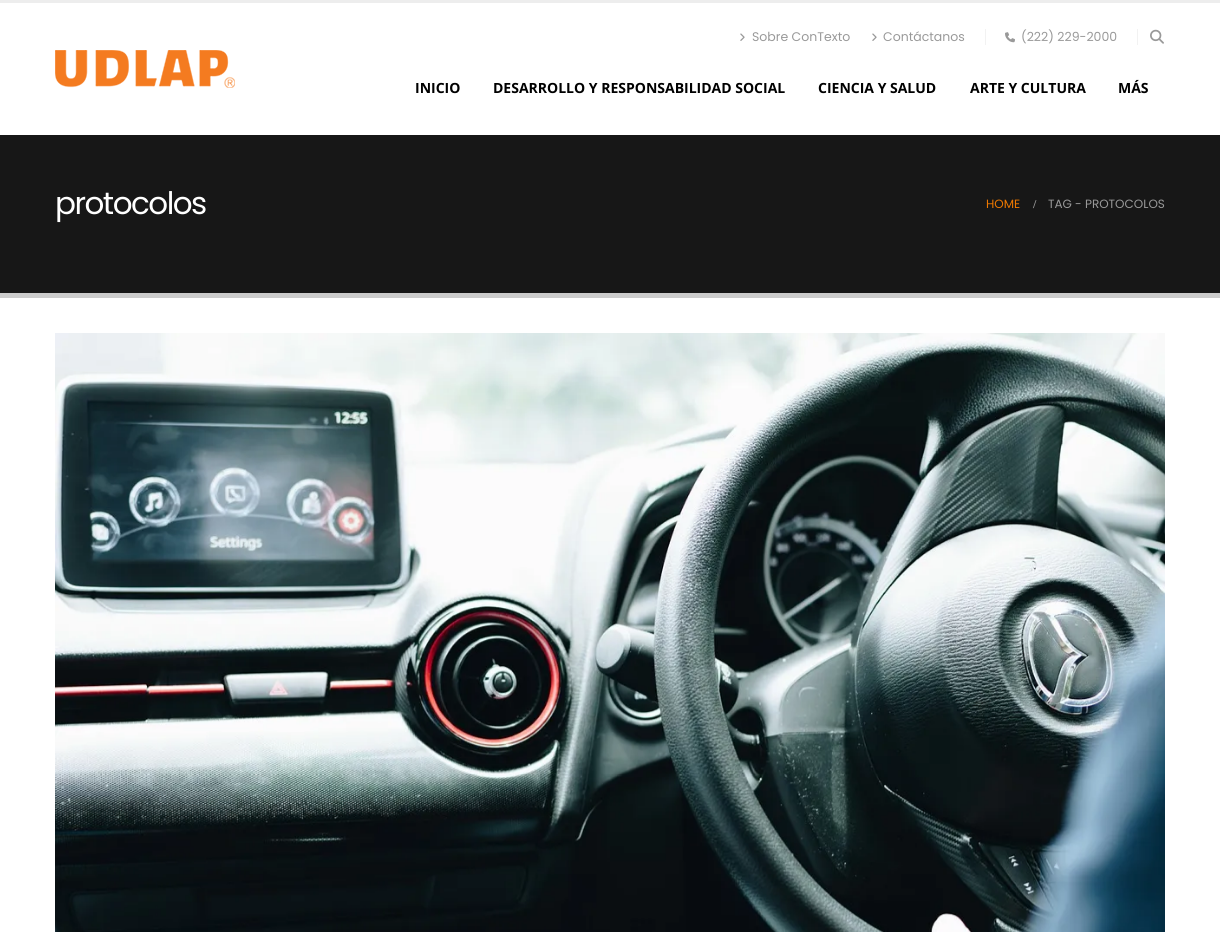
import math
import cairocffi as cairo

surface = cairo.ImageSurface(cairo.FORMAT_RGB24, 1220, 932)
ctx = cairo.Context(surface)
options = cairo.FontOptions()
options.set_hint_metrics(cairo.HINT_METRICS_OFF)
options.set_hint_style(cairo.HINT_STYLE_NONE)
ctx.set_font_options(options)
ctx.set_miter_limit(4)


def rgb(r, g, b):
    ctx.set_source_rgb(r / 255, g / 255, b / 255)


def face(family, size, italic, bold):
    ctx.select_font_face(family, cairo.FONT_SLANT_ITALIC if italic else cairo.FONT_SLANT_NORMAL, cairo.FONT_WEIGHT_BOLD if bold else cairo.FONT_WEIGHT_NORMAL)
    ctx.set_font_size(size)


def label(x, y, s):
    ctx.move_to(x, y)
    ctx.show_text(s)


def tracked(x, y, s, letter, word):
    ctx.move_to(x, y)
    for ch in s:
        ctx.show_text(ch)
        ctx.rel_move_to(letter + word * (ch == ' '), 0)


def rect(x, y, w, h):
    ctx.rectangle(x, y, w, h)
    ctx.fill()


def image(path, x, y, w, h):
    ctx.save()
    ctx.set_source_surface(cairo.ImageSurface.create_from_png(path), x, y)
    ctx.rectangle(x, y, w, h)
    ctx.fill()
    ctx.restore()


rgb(255, 255, 255)
ctx.paint()
rgb(237, 237, 237)
rect(0, 0, 1220, 3)
image('image0.png', 55, 50, 180, 38)
image('image1.png', 740, 33, 5, 8)
face('Poppins', 12.5, 0, 0)
rgb(153, 153, 153)
label(752, 41, 'Sobre ConTexto')
image('image1.png', 872, 33, 5, 8)
label(883, 41, 'Contáctanos')
rgb(242, 242, 242)
rect(985, 29, 1, 16)
image('image2.png', 1005, 32, 10, 11)
rgb(153, 153, 153)
label(1021, 41, '(222) 229-2000')
rgb(242, 242, 242)
rect(1137, 29, 1, 16)
image('image3.png', 1150, 29, 14, 15)
face('Open Sans', 14, 0, 1)
rgb(0, 0, 0)
label(415, 93, 'INICIO')
label(493, 93, 'DESARROLLO Y RESPONSABILIDAD SOCIAL')
label(818, 93, 'CIENCIA Y SALUD')
label(970, 93, 'ARTE Y CULTURA')
label(1118, 93, 'MÁS')
rgb(23, 23, 23)
rect(0, 135, 1220, 158)
rgb(204, 204, 204)
rect(0, 293, 1220, 5)
face('Poppins', 31, 0, 0)
rgb(255, 255, 255)
tracked(55, 214, 'protocolos', -1.5, 0)
face('Poppins', 12, 0, 0)
rgb(237, 120, 0)
label(986, 208, 'HOME')
face('Liberation Serif', 12, 0, 1)
rgb(153, 153, 153)
label(1033, 208, '/')
face('Poppins', 12, 0, 0)
label(1048, 208, 'TAG - PROTOCOLOS')
image('image4.png', 55, 333, 1110, 599)
surface.write_to_png('render.png')
